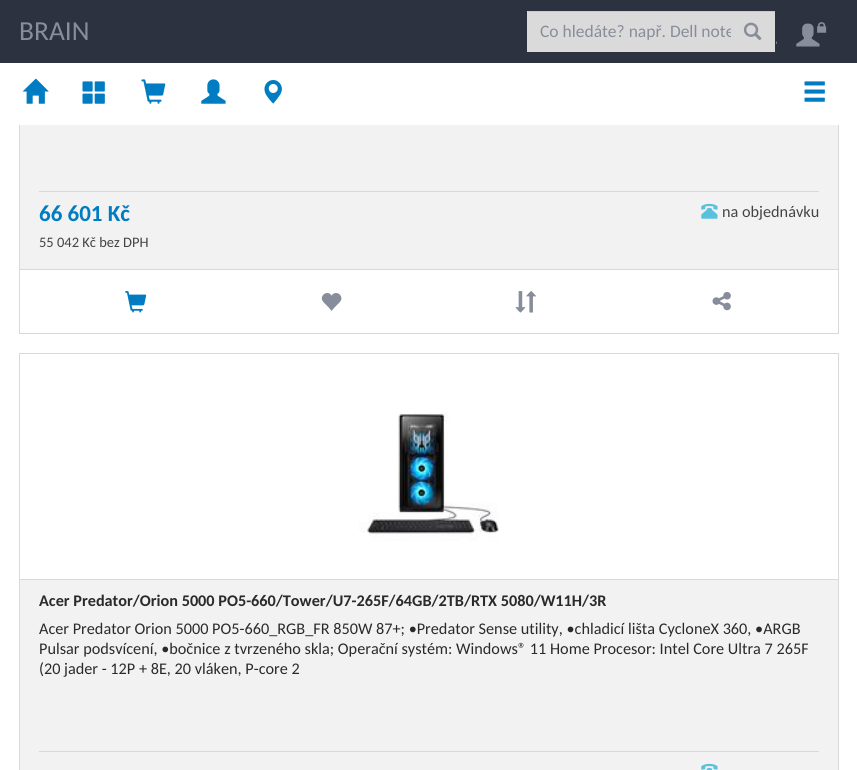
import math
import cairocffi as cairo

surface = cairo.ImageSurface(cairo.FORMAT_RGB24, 857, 770)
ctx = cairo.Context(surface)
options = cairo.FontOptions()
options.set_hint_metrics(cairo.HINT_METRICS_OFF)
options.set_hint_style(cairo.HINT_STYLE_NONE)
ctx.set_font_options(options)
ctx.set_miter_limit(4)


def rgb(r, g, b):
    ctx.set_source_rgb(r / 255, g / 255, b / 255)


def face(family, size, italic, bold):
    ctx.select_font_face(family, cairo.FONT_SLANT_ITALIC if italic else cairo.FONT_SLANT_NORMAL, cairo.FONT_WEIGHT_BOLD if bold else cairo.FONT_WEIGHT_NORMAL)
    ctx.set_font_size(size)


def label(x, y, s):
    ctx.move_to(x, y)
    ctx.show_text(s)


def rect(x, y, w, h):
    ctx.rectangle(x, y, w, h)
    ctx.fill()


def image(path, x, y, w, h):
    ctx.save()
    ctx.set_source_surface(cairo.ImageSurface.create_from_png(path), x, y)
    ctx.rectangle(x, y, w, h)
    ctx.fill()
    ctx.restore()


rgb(255, 255, 255)
ctx.paint()
rgb(242, 242, 242)
rect(20, 125, 818, 144)
ctx.rectangle(19.5, -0.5, 819, 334)
rgb(217, 217, 217)
ctx.set_line_width(1)
ctx.stroke()
rgb(44, 50, 63)
rect(0, 0, 857, 63)
face('Carlito', 27.5, 0, 0)
rgb(136, 141, 155)
label(19, 40, 'BRAIN')
rgb(219, 218, 218)
rect(527, 11, 248, 41)
rgb(203, 202, 202)
rect(528, 11, 247, 1)
ctx.save()
ctx.rectangle(540, 21, 191, 22)
ctx.clip()
face('Carlito', 17.5, 0, 0)
rgb(136, 141, 155)
label(540, 37, 'Co hledáte? např. Dell note')
ctx.restore()
image('image0.png', 743, 22, 19, 18)
image('image1.png', 796, 22, 31, 25)
image('image2.png', 776, 41, 1, 3)
rgb(255, 255, 255)
rect(19, 63, 820, 62)
image('image3.png', 22, 78, 27, 26)
image('image4.png', 82, 81, 23, 23)
image('image5.png', 141, 79, 25, 25)
image('image6.png', 201, 79, 25, 25)
image('image7.png', 264, 80, 18, 24)
image('image8.png', 804, 81, 21, 21)
rgb(217, 217, 217)
rect(39, 191, 780, 1)
face('Carlito', 23, 0, 1)
rgb(0, 124, 194)
label(39, 221, '66 601 Kč')
face('Carlito', 14.5, 0, 0)
rgb(68, 68, 68)
label(39, 247, '55 042 Kč bez DPH')
image('image9.png', 701, 203, 17, 16)
face('Carlito', 16.25, 0, 0)
label(722, 217, 'na objednávku')
rgb(217, 217, 217)
rect(20, 269, 818, 1)
image('image10.png', 125, 291, 22, 22)
image('image11.png', 321, 293, 21, 18)
image('image12.png', 515, 291, 21, 22)
image('image13.png', 712, 292, 19, 19)
rgb(242, 242, 242)
rect(20, 580, 818, 190)
ctx.rectangle(19.5, 353.5, 819, 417)
rgb(217, 217, 217)
ctx.stroke()
image('image14.png', 359, 412, 140, 130)
rect(20, 579, 818, 1)
face('Carlito', 16.25, 0, 1)
rgb(42, 42, 42)
label(39, 606, 'Acer Predator/Orion 5000 PO5-660/Tower/U7-265F/64GB/2TB/RTX 5080/W11H/3R')
face('Carlito', 16.25, 0, 0)
label(39, 634, 'Acer Predator Orion 5000 PO5-660_RGB_FR 850W 87+; •Predator Sense utility, •chladicí lišta CycloneX 360, •ARGB')
label(39, 654, 'Pulsar podsvícení, •bočnice z tvrzeného skla; Operační systém: Windows® 11 Home Procesor: Intel Core Ultra 7 265F')
label(39, 674, '(20 jader - 12P + 8E, 20 vláken, P-core 2')
rgb(217, 217, 217)
rect(39, 751, 780, 1)
image('image15.png', 701, 763, 17, 7)
surface.write_to_png('render.png')
